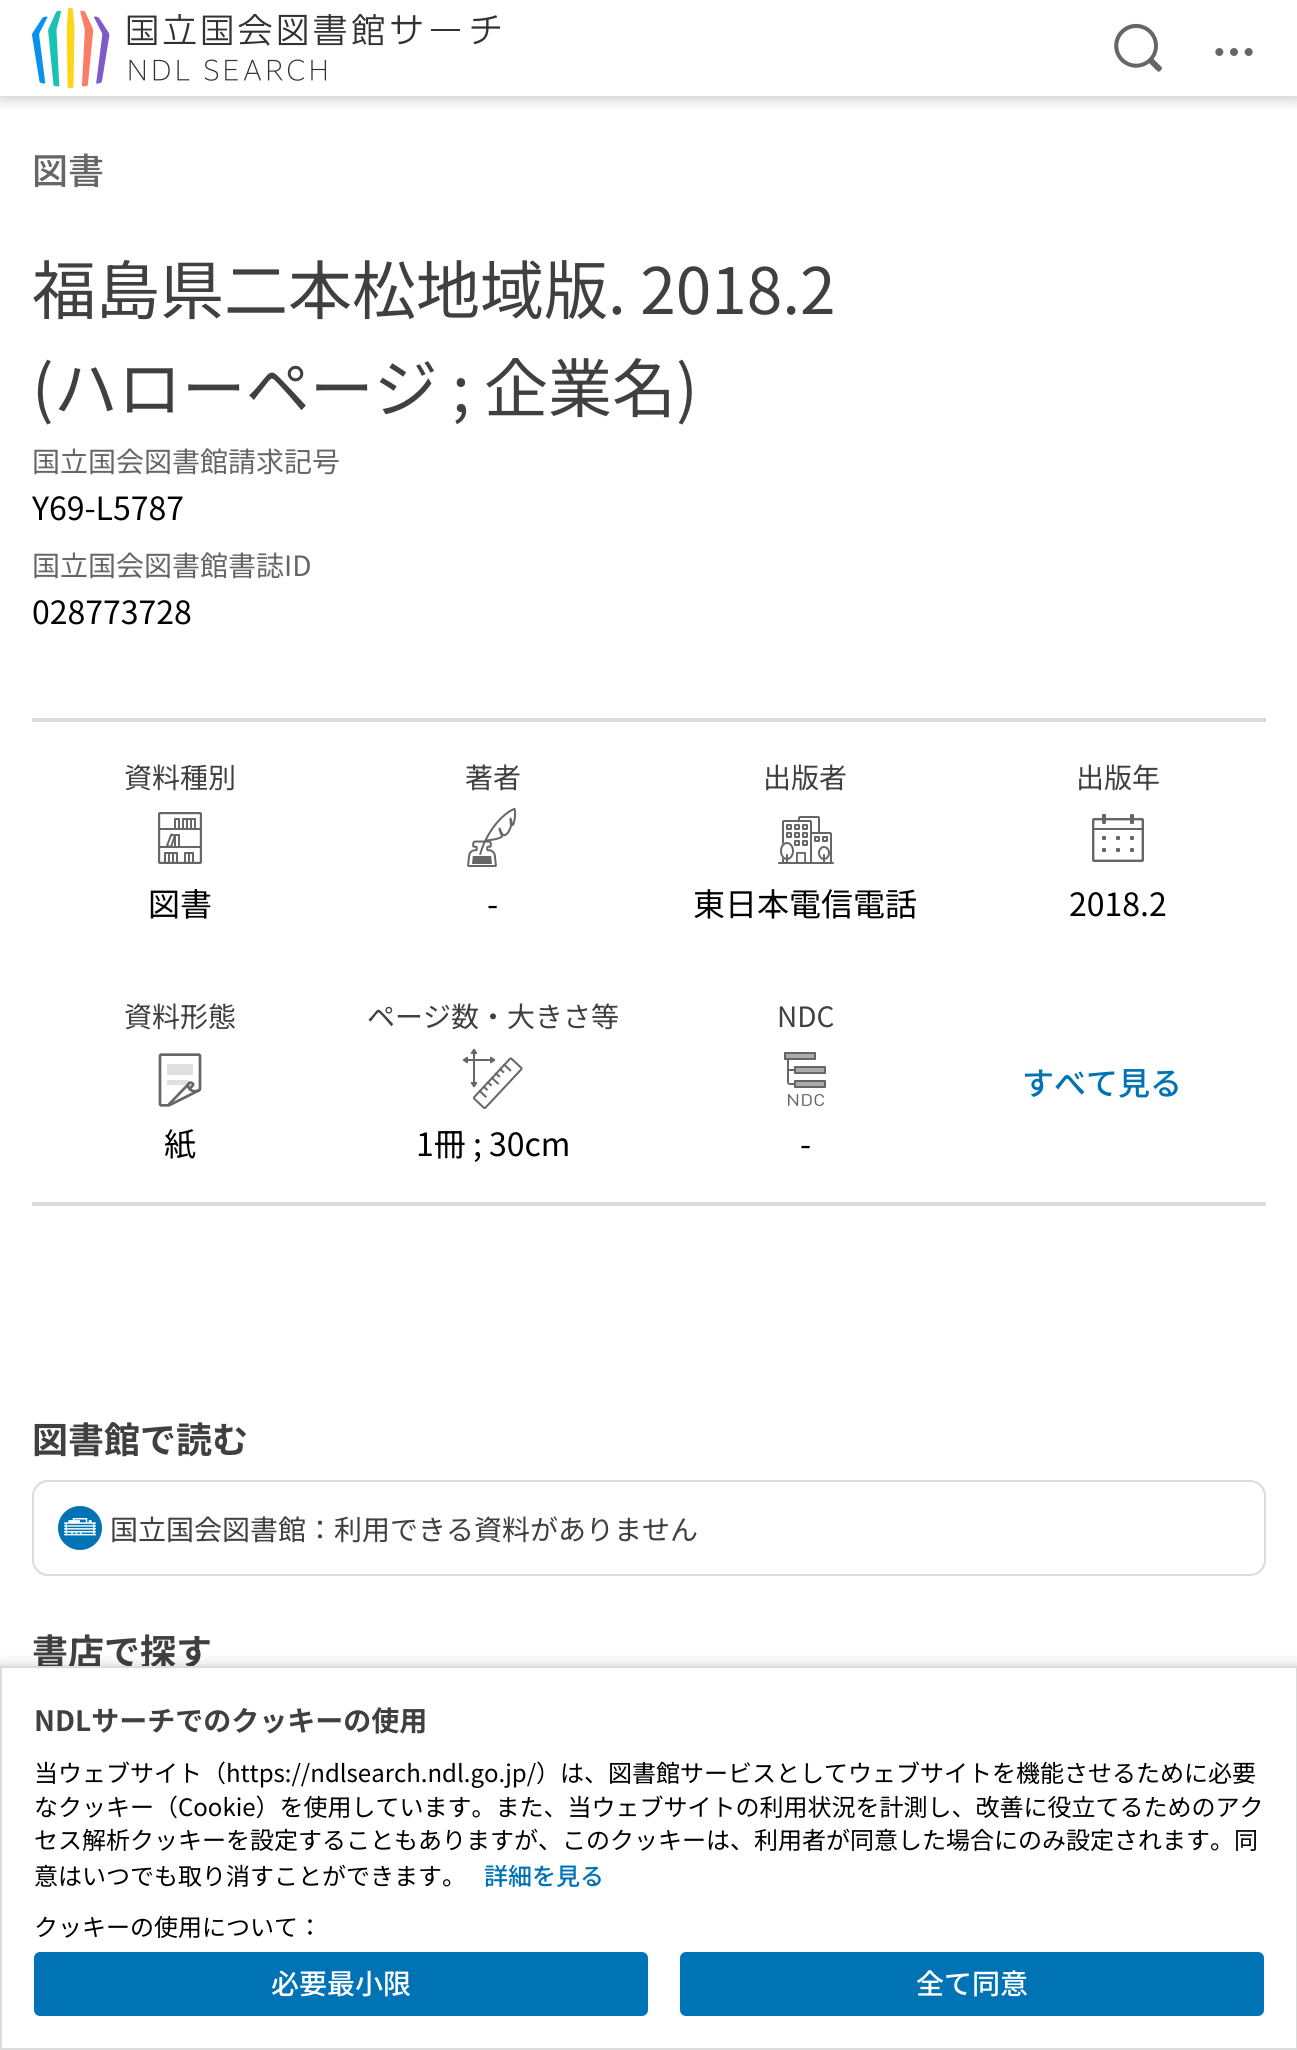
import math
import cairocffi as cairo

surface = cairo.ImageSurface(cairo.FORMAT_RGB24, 1297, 2050)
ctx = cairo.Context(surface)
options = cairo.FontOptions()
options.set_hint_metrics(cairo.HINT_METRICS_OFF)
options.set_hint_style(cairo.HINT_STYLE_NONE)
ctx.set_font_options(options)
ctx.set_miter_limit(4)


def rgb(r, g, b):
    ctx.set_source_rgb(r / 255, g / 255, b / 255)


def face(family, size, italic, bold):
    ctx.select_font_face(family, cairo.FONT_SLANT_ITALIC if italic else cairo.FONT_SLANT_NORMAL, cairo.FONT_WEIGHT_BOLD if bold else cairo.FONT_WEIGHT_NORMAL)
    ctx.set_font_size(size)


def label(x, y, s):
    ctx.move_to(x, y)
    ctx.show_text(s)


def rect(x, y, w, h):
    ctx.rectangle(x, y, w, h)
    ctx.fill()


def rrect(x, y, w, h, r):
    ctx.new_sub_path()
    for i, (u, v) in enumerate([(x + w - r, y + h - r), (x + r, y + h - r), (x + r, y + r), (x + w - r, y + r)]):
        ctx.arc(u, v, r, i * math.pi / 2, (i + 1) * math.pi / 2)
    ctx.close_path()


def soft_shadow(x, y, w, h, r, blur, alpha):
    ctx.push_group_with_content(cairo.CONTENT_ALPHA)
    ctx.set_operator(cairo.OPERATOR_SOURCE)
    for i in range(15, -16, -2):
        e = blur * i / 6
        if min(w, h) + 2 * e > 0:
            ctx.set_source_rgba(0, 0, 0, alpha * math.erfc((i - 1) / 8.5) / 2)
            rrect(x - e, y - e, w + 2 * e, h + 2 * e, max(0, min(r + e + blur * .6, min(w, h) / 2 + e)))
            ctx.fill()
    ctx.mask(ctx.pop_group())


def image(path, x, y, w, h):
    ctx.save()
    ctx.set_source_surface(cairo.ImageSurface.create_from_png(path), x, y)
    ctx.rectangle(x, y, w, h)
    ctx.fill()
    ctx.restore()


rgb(255, 255, 255)
ctx.paint()
ctx.save()
ctx.rectangle(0, 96, 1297, 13)
ctx.clip()
rgb(0, 0, 0)
soft_shadow(0, 2, 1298, 96, 0, 8, 0.24)
ctx.restore()
image('image0.png', 32, 8, 468, 80)
image('image1.png', 1114, 23, 48, 49)
image('image2.png', 1215, 48, 38, 8)
face('Noto Sans JP Medium', 36, 0, 0)
rgb(102, 102, 102)
label(32, 184, '図書')
face('Noto Sans JP', 64, 0, 0)
rgb(64, 64, 64)
label(32, 314, '福島県二本松地域版. 2018.2')
label(32, 412, '(ハローページ ; 企業名)')
face('Noto Sans JP', 28, 0, 0)
rgb(102, 102, 102)
label(32, 472, '国立国会図書館請求記号')
face('Noto Sans JP', 32, 0, 0)
rgb(0, 0, 0)
label(32, 520, 'Y69-L5787')
face('Noto Sans JP', 28, 0, 0)
rgb(102, 102, 102)
label(32, 576, '国立国会図書館書誌ID')
face('Noto Sans JP', 32, 0, 0)
rgb(0, 0, 0)
label(32, 624, '028773728')
rgb(219, 219, 219)
rect(32, 718, 1234, 4)
face('Noto Sans JP', 28, 0, 0)
rgb(64, 64, 64)
label(124, 788, '資料種別')
image('image3.png', 158, 812, 44, 52)
face('Noto Sans JP', 32, 0, 0)
rgb(0, 0, 0)
label(148, 916, '図書')
face('Noto Sans JP', 28, 0, 0)
rgb(64, 64, 64)
label(465, 788, '著者')
image('image4.png', 467, 807, 50, 60)
face('Noto Sans JP', 32, 0, 0)
rgb(0, 0, 0)
label(487, 916, '-')
face('Noto Sans JP', 28, 0, 0)
rgb(64, 64, 64)
label(763, 788, '出版者')
image('image5.png', 778, 816, 56, 48)
face('Noto Sans JP', 32, 0, 0)
rgb(0, 0, 0)
label(693, 916, '東日本電信電話')
face('Noto Sans JP', 28, 0, 0)
rgb(64, 64, 64)
label(1076, 788, '出版年')
image('image6.png', 1092, 814, 52, 48)
face('Noto Sans JP', 32, 0, 0)
rgb(0, 0, 0)
label(1069, 916, '2018.2')
face('Noto Sans JP', 28, 0, 0)
rgb(64, 64, 64)
label(124, 1027, '資料形態')
image('image7.png', 158, 1053, 44, 54)
face('Noto Sans JP', 32, 0, 0)
rgb(0, 0, 0)
label(164, 1156, '紙')
face('Noto Sans JP', 28, 0, 0)
rgb(64, 64, 64)
label(367, 1027, 'ページ数・大きさ等')
image('image8.png', 462, 1048, 61, 62)
face('Noto Sans JP', 32, 0, 0)
rgb(0, 0, 0)
label(416, 1156, '1冊 ; 30cm')
face('Noto Sans JP', 28, 0, 0)
rgb(64, 64, 64)
label(777, 1027, 'NDC')
image('image9.png', 784, 1052, 42, 54)
face('Noto Sans JP', 32, 0, 0)
rgb(0, 0, 0)
label(800, 1156, '-')
face('Noto Sans JP Medium', 32, 0, 0)
rgb(0, 115, 181)
label(1022, 1095, 'すべて見る')
rgb(219, 219, 219)
rect(32, 1202, 1234, 4)
face('Noto Sans JP', 36, 0, 1)
rgb(64, 64, 64)
label(32, 1453, '図書館で読む')
rrect(33, 1481, 1232, 94, 15)
rgb(219, 219, 219)
ctx.stroke()
image('image10.png', 58, 1506, 44, 44)
face('Noto Sans JP', 28, 0, 0)
rgb(64, 64, 64)
label(110, 1540, '国立国会図書館：利用できる資料がありません')
face('Noto Sans JP', 36, 0, 1)
label(32, 1665, '書店で探す')
rgb(0, 0, 0)
soft_shadow(0, 1668, 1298, 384, 0, 8, 0.24)
rgb(255, 255, 255)
ctx.rectangle(1, 1667, 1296, 382)
ctx.fill_preserve()
rgb(219, 219, 219)
ctx.stroke()
face('Noto Sans JP', 28, 0, 1)
rgb(64, 64, 64)
label(34, 1731, 'NDLサーチでのクッキーの使用')
face('Noto Sans JP', 24, 0, 0)
rgb(0, 0, 0)
label(34, 1782, '当ウェブサイト（https://ndlsearch.ndl.go.jp/）は、図書館サービスとしてウェブサイトを機能させるために必要')
label(34, 1816, 'なクッキー（Cookie）を使用しています。また、当ウェブサイトの利用状況を計測し、改善に役立てるためのアク')
label(34, 1849, 'セス解析クッキーを設定することもありますが、このクッキーは、利用者が同意した場合にのみ設定されます。同')
label(34, 1885, '意はいつでも取り消すことができます。')
face('Noto Sans JP Medium', 24, 0, 0)
rgb(0, 115, 181)
label(484, 1885, '詳細を見る')
face('Noto Sans JP', 24, 0, 0)
rgb(0, 0, 0)
label(34, 1936, 'クッキーの使用について：')
rgb(0, 115, 181)
rrect(35, 1953, 612, 62, 5)
ctx.fill_preserve()
ctx.stroke()
face('Noto Sans JP Medium', 28, 0, 0)
rgb(255, 255, 255)
label(271, 1994, '必要最小限')
rgb(0, 115, 181)
rrect(681, 1953, 582, 62, 5)
ctx.fill_preserve()
ctx.stroke()
rgb(255, 255, 255)
label(916, 1994, '全て同意')
surface.write_to_png('render.png')
